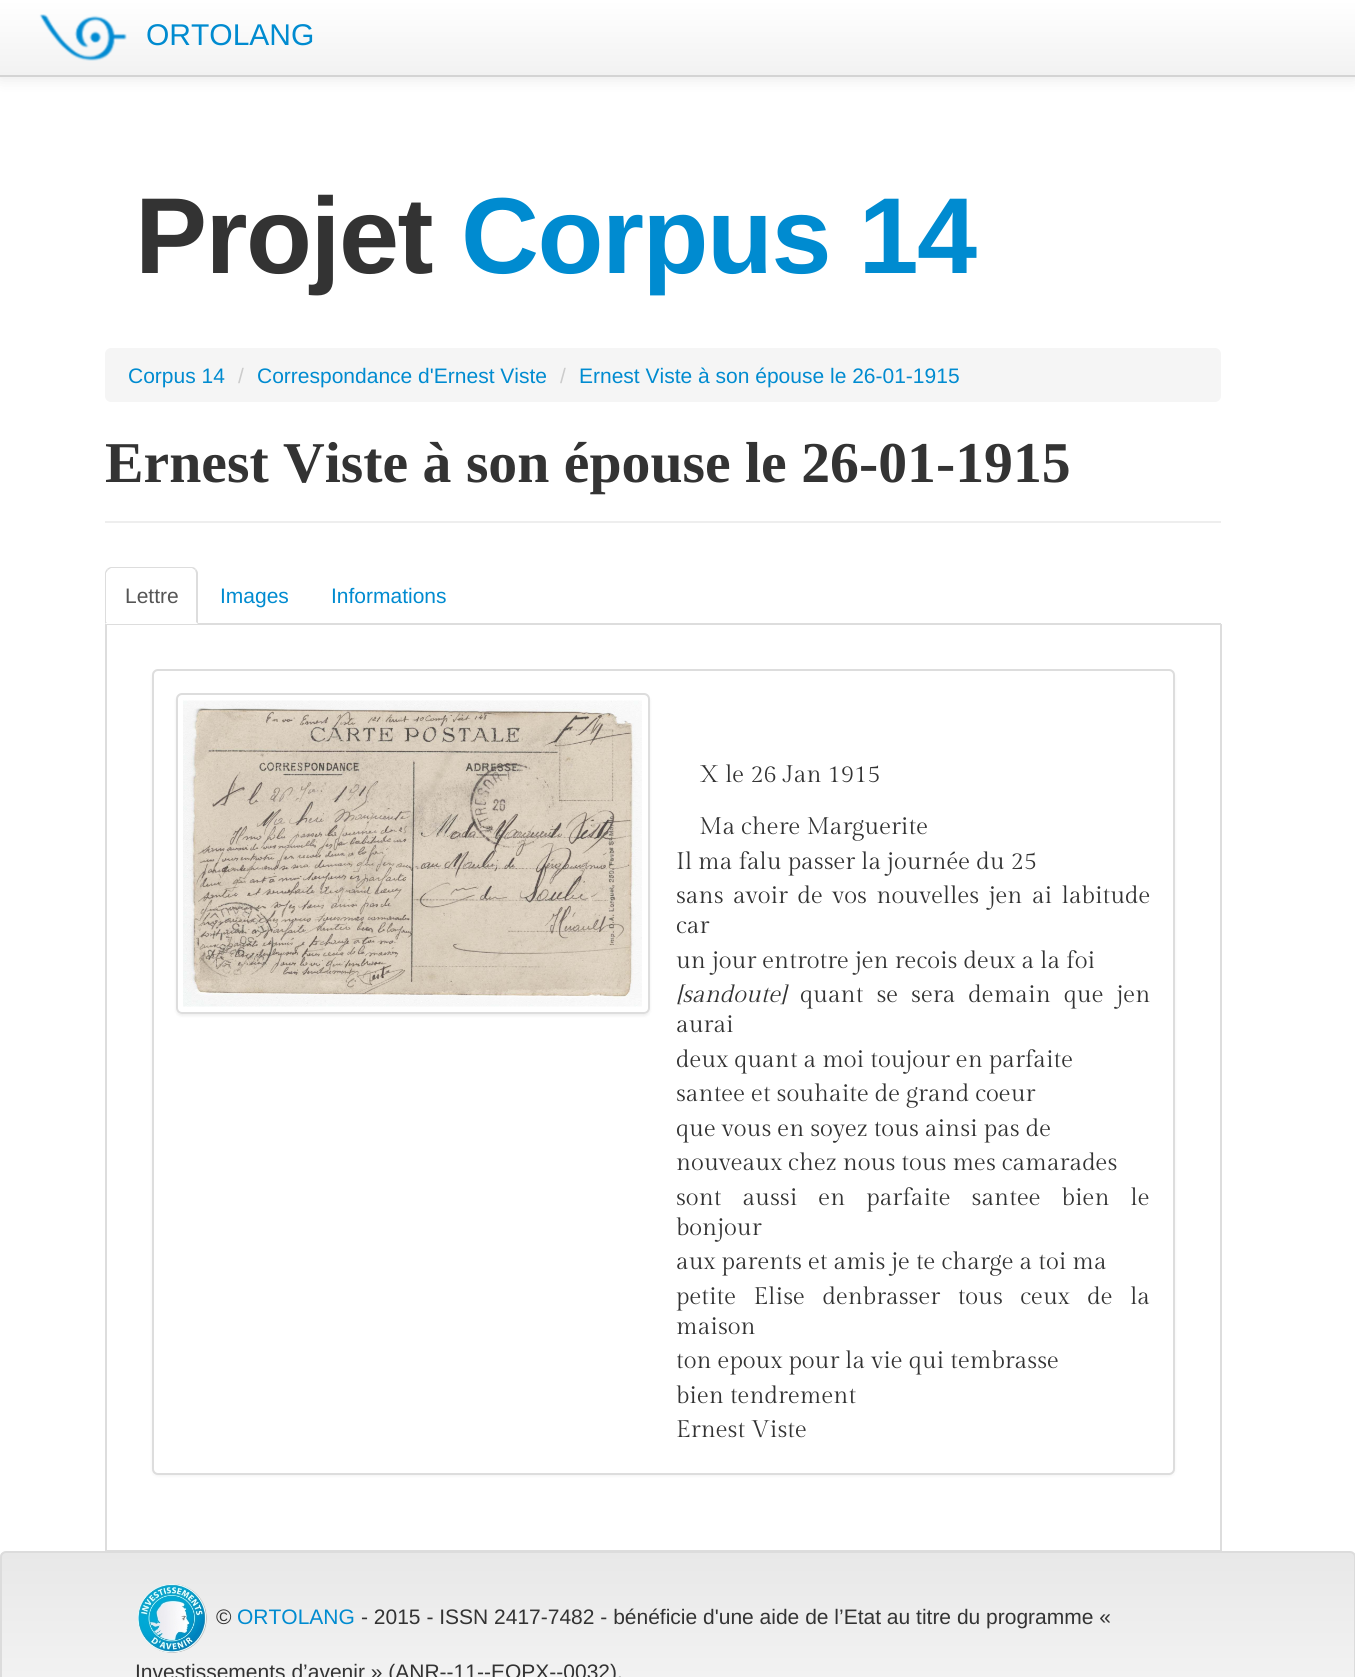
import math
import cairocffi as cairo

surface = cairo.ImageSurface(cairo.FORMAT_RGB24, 1355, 1677)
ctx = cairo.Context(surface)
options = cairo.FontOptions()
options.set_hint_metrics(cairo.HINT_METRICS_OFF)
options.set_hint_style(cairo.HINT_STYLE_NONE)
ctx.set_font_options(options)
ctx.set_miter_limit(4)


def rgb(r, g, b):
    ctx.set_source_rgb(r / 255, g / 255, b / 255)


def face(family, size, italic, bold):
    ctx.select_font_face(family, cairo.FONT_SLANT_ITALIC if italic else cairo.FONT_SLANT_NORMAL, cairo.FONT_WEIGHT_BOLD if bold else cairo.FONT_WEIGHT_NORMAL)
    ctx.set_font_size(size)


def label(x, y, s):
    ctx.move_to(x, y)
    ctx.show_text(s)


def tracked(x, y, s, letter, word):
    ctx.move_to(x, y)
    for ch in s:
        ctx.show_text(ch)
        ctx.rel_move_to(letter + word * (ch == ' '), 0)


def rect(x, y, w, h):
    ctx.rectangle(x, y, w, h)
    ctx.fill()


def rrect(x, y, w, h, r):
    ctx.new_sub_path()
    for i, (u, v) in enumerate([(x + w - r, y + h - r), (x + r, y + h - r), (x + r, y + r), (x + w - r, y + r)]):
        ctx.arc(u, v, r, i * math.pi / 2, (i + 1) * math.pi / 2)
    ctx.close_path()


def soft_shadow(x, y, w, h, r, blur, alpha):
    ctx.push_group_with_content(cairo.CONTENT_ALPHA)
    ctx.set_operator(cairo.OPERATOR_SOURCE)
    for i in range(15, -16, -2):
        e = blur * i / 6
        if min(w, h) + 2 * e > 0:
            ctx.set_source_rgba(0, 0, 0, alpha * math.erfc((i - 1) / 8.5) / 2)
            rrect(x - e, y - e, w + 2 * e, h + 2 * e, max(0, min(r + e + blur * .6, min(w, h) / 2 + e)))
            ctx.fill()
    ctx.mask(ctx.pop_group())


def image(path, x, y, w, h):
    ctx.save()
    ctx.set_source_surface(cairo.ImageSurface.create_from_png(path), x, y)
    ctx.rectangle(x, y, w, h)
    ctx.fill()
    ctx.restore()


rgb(255, 255, 255)
ctx.paint()
rgb(0, 0, 0)
soft_shadow(0, 2, 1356, 76, 0, 7.5, 0.1)
gradient = cairo.LinearGradient(678, 0, 678, 75)
gradient.add_color_stop_rgba(0, 1, 1, 1, 1)
gradient.add_color_stop_rgba(1, 0.949, 0.949, 0.949, 1)
ctx.set_source(gradient)
rect(0, 0, 1355, 75)
rgb(212, 212, 212)
rect(0, 75, 1355, 2)
image('image0.png', 39, 14, 88, 47)
face('Liberation Sans', 30, 0, 0)
rgb(0, 139, 208)
label(146, 45, 'ORTOLANG')
face('Liberation Sans', 108, 0, 1)
rgb(51, 51, 51)
tracked(135, 273, 'Projet', -1.5, 0)
rgb(0, 139, 208)
tracked(461, 273, 'Corpus 14', -1.5, 0)
rgb(245, 245, 245)
rrect(105, 348, 1116, 54, 6)
ctx.fill()
face('Liberation Sans', 21, 0, 0)
rgb(0, 139, 208)
label(128, 383, 'Corpus 14')
rgb(204, 204, 204)
label(238, 383, '/')
rgb(0, 139, 208)
label(257, 383, 'Correspondance d\'Ernest Viste')
rgb(204, 204, 204)
label(560, 383, '/')
rgb(0, 139, 208)
label(579, 383, 'Ernest Viste à son épouse le 26-01-1915')
rgb(238, 238, 238)
rect(105, 521, 1116, 2)
face('Liberation Serif', 57.75, 0, 1)
rgb(51, 51, 51)
label(105, 482, 'Ernest Viste à son épouse le 26-01-1915')
rgb(221, 221, 221)
rect(105, 623, 1116, 2)
rgb(255, 255, 255)
ctx.new_path()
ctx.move_to(111, 567)
ctx.line_to(192, 567)
ctx.curve_to(195.5, 567, 198, 569.5, 198, 573)
ctx.line_to(198, 624)
ctx.line_to(105, 624)
ctx.line_to(105, 573)
ctx.curve_to(105, 569.5, 107.5, 567, 111, 567)
ctx.close_path()
ctx.fill()
rgb(221, 221, 221)
ctx.new_path()
ctx.move_to(111, 567)
ctx.curve_to(110, 567, 108, 568, 107, 569)
ctx.line_to(108, 570)
ctx.line_to(111, 568)
ctx.line_to(192, 568)
ctx.line_to(195, 570)
ctx.line_to(196, 569)
ctx.curve_to(195, 568, 194, 567, 192, 567)
ctx.close_path()
ctx.fill()
ctx.new_path()
ctx.move_to(198, 624)
ctx.line_to(198, 573)
ctx.curve_to(198, 572, 197, 570, 196, 569)
ctx.line_to(195, 570)
ctx.line_to(196, 573)
ctx.line_to(196, 622)
ctx.close_path()
ctx.fill()
ctx.new_path()
ctx.move_to(105, 624)
ctx.line_to(107, 622)
ctx.line_to(106, 622)
ctx.line_to(106, 573)
ctx.line_to(108, 570)
ctx.line_to(107, 569)
ctx.curve_to(106, 570, 105, 572, 105, 573)
ctx.close_path()
ctx.fill()
face('Liberation Sans', 21, 0, 0)
rgb(85, 85, 85)
label(125, 603, 'Lettre')
rgb(0, 139, 208)
label(220, 603, 'Images')
label(331, 603, 'Informations')
rgb(221, 221, 221)
rect(1220, 624, 2, 927)
rect(105, 1550, 1116, 1)
rect(105, 624, 2, 927)
rgb(0, 0, 0)
soft_shadow(152, 671, 1023, 805, 6, 1.5, 0.05)
rgb(255, 255, 255)
rrect(153, 670, 1021, 804, 5)
ctx.fill_preserve()
rgb(221, 221, 221)
ctx.stroke()
ctx.save()
ctx.set_fill_rule(cairo.FILL_RULE_EVEN_ODD)
ctx.new_path()
ctx.move_to(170, 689)
ctx.line_to(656, 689)
ctx.line_to(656, 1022)
ctx.line_to(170, 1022)
ctx.close_path()
ctx.move_to(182, 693)
ctx.line_to(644, 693)
ctx.curve_to(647.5, 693, 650, 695.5, 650, 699)
ctx.line_to(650, 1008)
ctx.curve_to(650, 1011.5, 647.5, 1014, 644, 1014)
ctx.line_to(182, 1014)
ctx.curve_to(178.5, 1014, 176, 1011.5, 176, 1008)
ctx.line_to(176, 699)
ctx.curve_to(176, 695.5, 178.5, 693, 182, 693)
ctx.close_path()
ctx.clip()
rgb(0, 0, 0)
soft_shadow(176, 695, 474, 321, 6, 1.5, 0.07)
ctx.restore()
rrect(177, 694, 472, 319, 5)
ctx.stroke()
image('image1.png', 183, 700, 459, 307)
face('Gilda Display', 24, 0, 0)
rgb(51, 51, 51)
label(699, 782, 'X le 26 Jan 1915')
label(699, 834, 'Ma chere Marguerite')
label(676, 869, 'Il ma falu passer la journée du 25')
tracked(676, 903, 'sans avoir de vos nouvelles jen ai labitude', 0, 3.5)
label(676, 933, 'car')
label(676, 968, 'un jour entrotre jen recois deux a la foi')
face('Gilda Display', 24, 1, 0)
label(676, 1002, '[sandoute]')
face('Gilda Display', 24, 0, 0)
tracked(800, 1002, 'quant se sera demain que jen', 0, 7)
label(676, 1032, 'aurai')
label(676, 1067, 'deux quant a moi toujour en parfaite')
label(676, 1101, 'santee et souhaite de grand coeur')
label(676, 1136, 'que vous en soyez tous ainsi pas de')
label(676, 1170, 'nouveaux chez nous tous mes camarades')
tracked(676, 1205, 'sont aussi en parfaite santee bien le', 0, 15)
label(676, 1235, 'bonjour')
label(676, 1269, 'aux parents et amis je te charge a toi ma')
tracked(676, 1304, 'petite Elise denbrasser tous ceux de la', 0, 11.5)
label(676, 1334, 'maison')
label(676, 1368, 'ton epoux pour la vie qui tembrasse')
label(676, 1403, 'bien tendrement')
label(676, 1437, 'Ernest Viste')
ctx.save()
rrect(0, 1551, 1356, 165, 6)
ctx.clip()
gradient = cairo.LinearGradient(678, 1553, 678, 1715)
gradient.add_color_stop_rgba(0, 0.91, 0.91, 0.91, 1)
gradient.add_color_stop_rgba(1, 0.961, 0.961, 0.961, 1)
ctx.set_source(gradient)
rect(0, 1553, 1355, 124)
ctx.restore()
rrect(1, 1552, 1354, 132, 5)
rgb(220, 220, 220)
ctx.stroke()
image('image2.png', 138, 1584, 69, 69)
face('Liberation Sans', 21, 0, 0)
rgb(51, 51, 51)
label(216, 1624, '©')
rgb(0, 139, 208)
label(237, 1624, 'ORTOLANG')
rgb(51, 51, 51)
label(361, 1624, '- 2015 - ISSN 2417-7482 - bénéficie d\'une aide de l’Etat au titre du programme «')
label(135, 1679, 'Investissements d’avenir » (ANR-‐11-‐EQPX-‐0032).')
surface.write_to_png('render.png')
